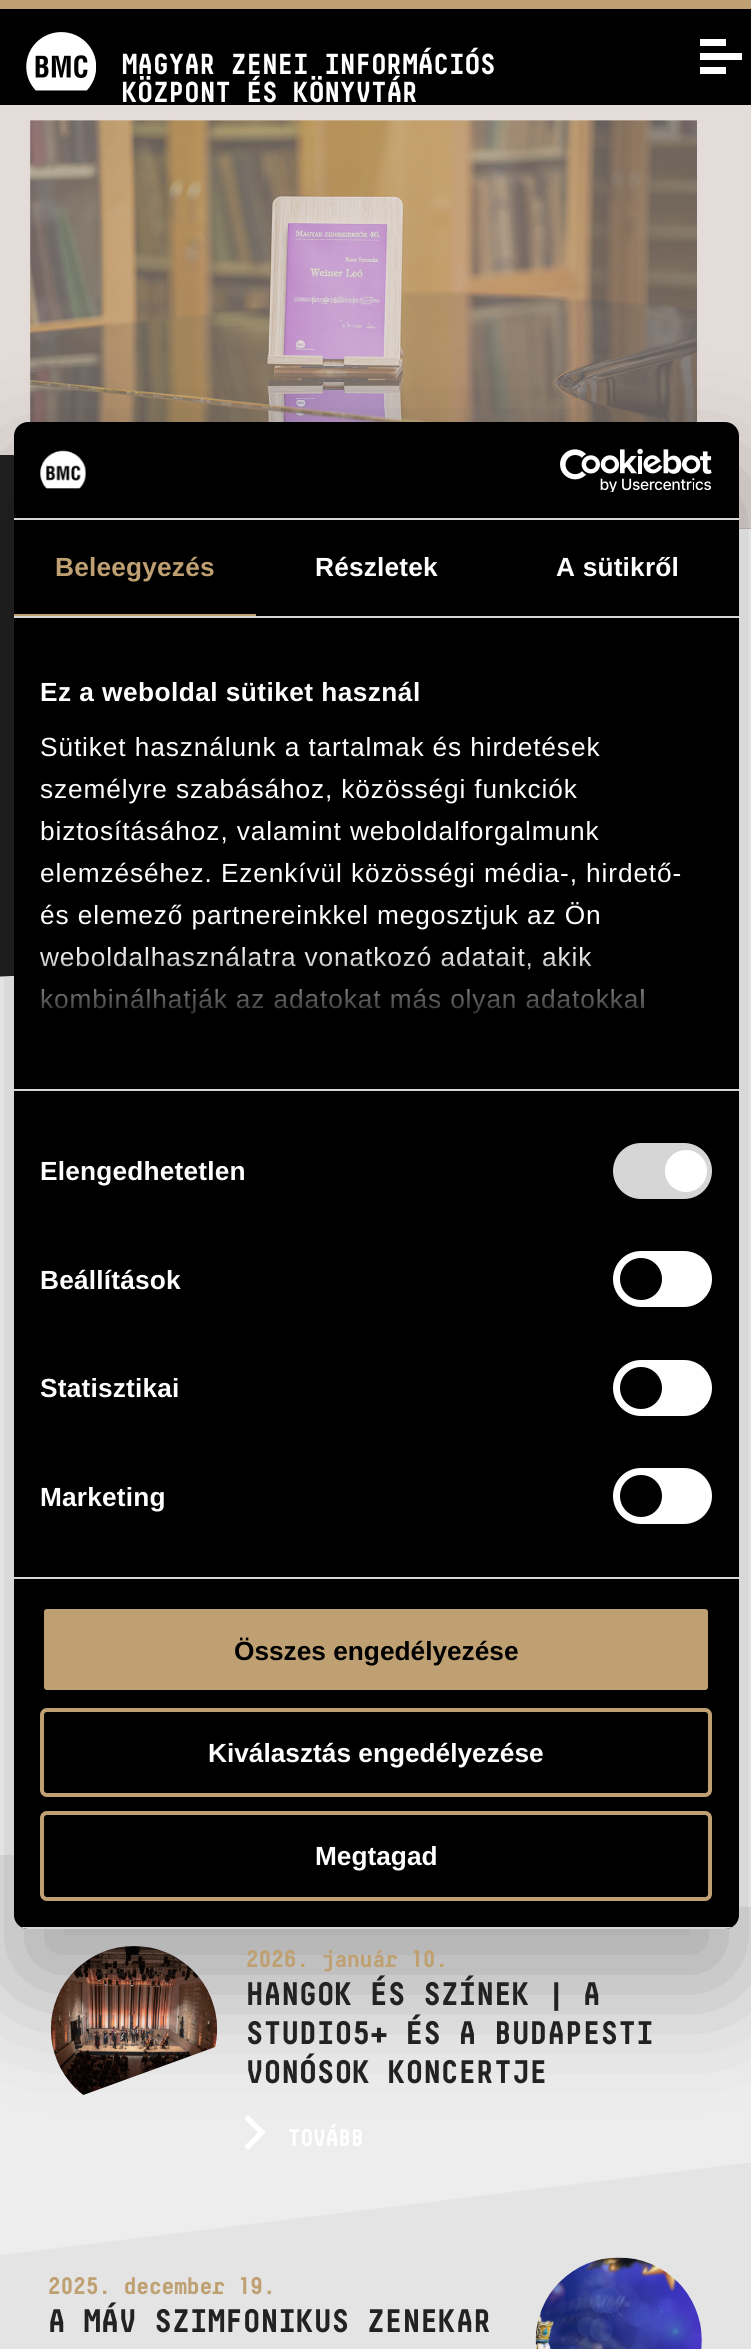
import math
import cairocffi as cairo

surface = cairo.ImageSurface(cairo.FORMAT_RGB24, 751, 2349)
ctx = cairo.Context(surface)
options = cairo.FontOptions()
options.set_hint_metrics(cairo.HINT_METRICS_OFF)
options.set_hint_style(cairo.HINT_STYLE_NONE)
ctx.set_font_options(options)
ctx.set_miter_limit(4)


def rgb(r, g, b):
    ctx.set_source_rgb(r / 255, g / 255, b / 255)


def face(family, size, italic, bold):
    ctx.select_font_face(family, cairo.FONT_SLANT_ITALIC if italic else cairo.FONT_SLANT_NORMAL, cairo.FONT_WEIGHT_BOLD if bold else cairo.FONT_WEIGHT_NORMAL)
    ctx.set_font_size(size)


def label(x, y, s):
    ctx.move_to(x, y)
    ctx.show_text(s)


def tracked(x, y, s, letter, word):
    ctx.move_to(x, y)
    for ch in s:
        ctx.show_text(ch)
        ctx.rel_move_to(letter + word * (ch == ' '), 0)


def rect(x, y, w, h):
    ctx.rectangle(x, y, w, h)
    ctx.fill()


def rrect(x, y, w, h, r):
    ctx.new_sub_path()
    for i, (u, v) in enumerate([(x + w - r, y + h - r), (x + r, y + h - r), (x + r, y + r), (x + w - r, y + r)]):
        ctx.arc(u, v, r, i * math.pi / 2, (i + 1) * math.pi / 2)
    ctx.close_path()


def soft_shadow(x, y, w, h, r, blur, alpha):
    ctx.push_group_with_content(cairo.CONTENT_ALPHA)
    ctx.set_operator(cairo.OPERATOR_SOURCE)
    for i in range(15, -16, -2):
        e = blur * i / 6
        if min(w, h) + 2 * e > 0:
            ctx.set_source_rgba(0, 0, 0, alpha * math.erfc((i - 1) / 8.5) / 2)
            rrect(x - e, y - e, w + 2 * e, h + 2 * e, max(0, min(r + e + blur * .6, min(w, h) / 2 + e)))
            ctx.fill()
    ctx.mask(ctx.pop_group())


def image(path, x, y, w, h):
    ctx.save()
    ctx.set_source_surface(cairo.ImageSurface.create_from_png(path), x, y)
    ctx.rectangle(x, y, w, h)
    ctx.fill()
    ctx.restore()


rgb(255, 255, 255)
ctx.paint()
rgb(191, 160, 114)
rect(0, 0, 751, 9)
rgb(0, 0, 0)
rect(0, 9, 751, 96)
image('image0.png', 26, 32, 70, 59)
face('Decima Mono', 28.9, 0, 1)
rgb(255, 255, 255)
tracked(121, 74, 'MAGYAR ZENEI INFORMÁCIÓS', -1.75, 0)
tracked(121, 102, 'KÖZPONT ÉS KÖNYVTÁR', -1.75, 0)
rect(700, 53, 42, 7)
rect(700, 39, 26, 7)
rect(700, 67, 26, 7)
rgb(200, 185, 178)
rect(0, 105, 751, 424)
image('image3.png', 0, 105, 751, 424)
ctx.save()
ctx.rectangle(0, 455, 693, 523)
ctx.clip()
rgb(34, 34, 34)
ctx.new_path()
ctx.move_to(0, 454)
ctx.line_to(623, 422)
ctx.line_to(596, 945)
ctx.line_to(-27, 978)
ctx.close_path()
ctx.fill()
ctx.restore()
ctx.save()
ctx.rectangle(0, 1855, 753, 401)
ctx.clip()
rgb(237, 237, 237)
ctx.new_path()
ctx.move_to(0, 1854)
ctx.line_to(0, 2256)
ctx.line_to(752, 2163)
ctx.line_to(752, 1907)
ctx.close_path()
ctx.fill()
ctx.restore()
image('image4.png', 51, 1946, 166, 149)
rgb(255, 255, 255)
ctx.new_path()
ctx.move_to(248, 2115)
ctx.line_to(265.5, 2132.5)
ctx.line_to(261.5, 2136)
ctx.line_to(244.5, 2119)
ctx.close_path()
ctx.fill()
ctx.new_path()
ctx.move_to(261.5, 2129)
ctx.line_to(265.5, 2132.5)
ctx.line_to(248, 2150)
ctx.line_to(244.5, 2146)
ctx.close_path()
ctx.fill()
rgb(228, 228, 228)
ctx.new_path()
ctx.move_to(0, 2255)
ctx.line_to(0, 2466)
ctx.line_to(746, 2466)
ctx.line_to(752, 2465)
ctx.line_to(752, 2163)
ctx.line_to(746, 2163)
ctx.close_path()
ctx.fill()
rgb(0, 0, 0)
soft_shadow(14, 478, 725, 1507, 14, 59.5, 0.3)
rgb(0, 0, 0)
rrect(14, 422, 725, 1507, 14)
ctx.fill()
rgb(214, 214, 214)
rect(14, 518, 725, 2)
image('image1.png', 40, 450, 46, 39)
image('image2.png', 560, 448, 152, 44)
rect(14, 616, 725, 2)
rgb(191, 160, 114)
rect(14, 614, 242, 2)
face('Liberation Sans', 26.25, 0, 1)
tracked(55, 576, 'Beleegyezés', 0.2, 0)
rgb(255, 255, 255)
tracked(315, 576, 'Részletek', 0.2, 0)
tracked(556, 576, 'A sütikről', 0.2, 0)
rgb(214, 214, 214)
rect(14, 1089, 725, 2)
rgb(255, 255, 255)
tracked(40, 701, 'Ez a weboldal sütiket használ', 0.45, 0)
face('Liberation Sans', 26.25, 0, 0)
tracked(40, 756, 'Sütiket használunk a tartalmak és hirdetések', 0.9, 0)
tracked(40, 798, 'személyre szabásához, közösségi funkciók', 0.9, 0)
tracked(40, 840, 'biztosításához, valamint weboldalforgalmunk', 0.9, 0)
tracked(40, 882, 'elemzéséhez. Ezenkívül közösségi média-, hirdető-', 0.9, 0)
tracked(40, 924, 'és elemező partnereinkkel megosztjuk az Ön', 0.9, 0)
tracked(40, 966, 'weboldalhasználatra vonatkozó adatait, akik', 0.9, 0)
tracked(40, 1008, 'kombinálhatják az adatokat más olyan adatokkal', 0.9, 0)
gradient = cairo.LinearGradient(365, 1079, 365, 947)
gradient.add_color_stop_rgba(0, 0, 0, 0, 1)
gradient.add_color_stop_rgba(0.5, 0, 0, 0, 0.8)
gradient.add_color_stop_rgba(1, 0, 0, 0, 0)
ctx.set_source(gradient)
rect(40, 949, 603, 65)
rgb(214, 214, 214)
rect(14, 1577, 725, 2)
face('Liberation Sans', 26.25, 0, 1)
rgb(255, 255, 255)
tracked(40, 1180, 'Elengedhetetlen', 0.2, 0)
rgb(214, 214, 214)
rrect(613, 1143, 99, 56, 28)
ctx.fill()
rgb(255, 255, 255)
ctx.arc(686, 1171, 21, 0, 2 * math.pi)
ctx.fill()
tracked(40, 1289, 'Beállítások', 0.2, 0)
rrect(613, 1251, 99, 56, 28)
ctx.fill()
rgb(0, 0, 0)
ctx.arc(641, 1279, 21, 0, 2 * math.pi)
ctx.fill()
rgb(255, 255, 255)
tracked(40, 1397, 'Statisztikai', 0.2, 0)
rrect(613, 1360, 99, 56, 28)
ctx.fill()
rgb(0, 0, 0)
ctx.arc(641, 1388, 21, 0, 2 * math.pi)
ctx.fill()
rgb(255, 255, 255)
tracked(40, 1506, 'Marketing', 0.2, 0)
rrect(613, 1468, 99, 56, 28)
ctx.fill()
rgb(0, 0, 0)
ctx.arc(641, 1496, 21, 0, 2 * math.pi)
ctx.fill()
ctx.save()
rrect(14, 422, 725, 1507, 14)
ctx.clip()
rgb(214, 214, 214)
rect(14, 1927, 725, 2)
ctx.restore()
rgb(191, 160, 114)
rrect(42, 1607, 668, 85, 5)
ctx.fill_preserve()
rgb(0, 0, 0)
ctx.set_line_width(4)
ctx.stroke()
label(234, 1660, 'Összes engedélyezése')
rrect(42, 1710, 668, 85, 5)
rgb(191, 160, 114)
ctx.stroke()
rgb(255, 255, 255)
label(208, 1762, 'Kiválasztás engedélyezése')
rrect(42, 1813, 668, 86, 5)
rgb(191, 160, 114)
ctx.stroke()
rgb(255, 255, 255)
label(315, 1865, 'Megtagad')
face('Decima Mono', 24, 0, 1)
rgb(191, 160, 114)
tracked(245, 1967, '2026. január 10.', -1.75, 0)
face('Decima Mono', 32.5, 0, 1)
rgb(34, 34, 34)
tracked(245, 2005, 'HANGOK ÉS SZÍNEK | A', -1.75, 0)
tracked(245, 2044, 'STUDIO5+ ÉS A BUDAPESTI', -1.75, 0)
tracked(245, 2083, 'VONÓSOK KONCERTJE', -1.75, 0)
face('Decima Mono', 24, 0, 1)
rgb(255, 255, 255)
tracked(287, 2146, 'TOVÁBB', -1.75, 0)
rgb(191, 160, 114)
tracked(47, 2294, '2025. december 19.', -1.75, 0)
image('image5.png', 535, 2257, 167, 92)
face('Decima Mono', 32.5, 0, 1)
rgb(34, 34, 34)
tracked(47, 2332, 'A MÁV SZIMFONIKUS ZENEKAR', -1.75, 0)
surface.write_to_png('render.png')
